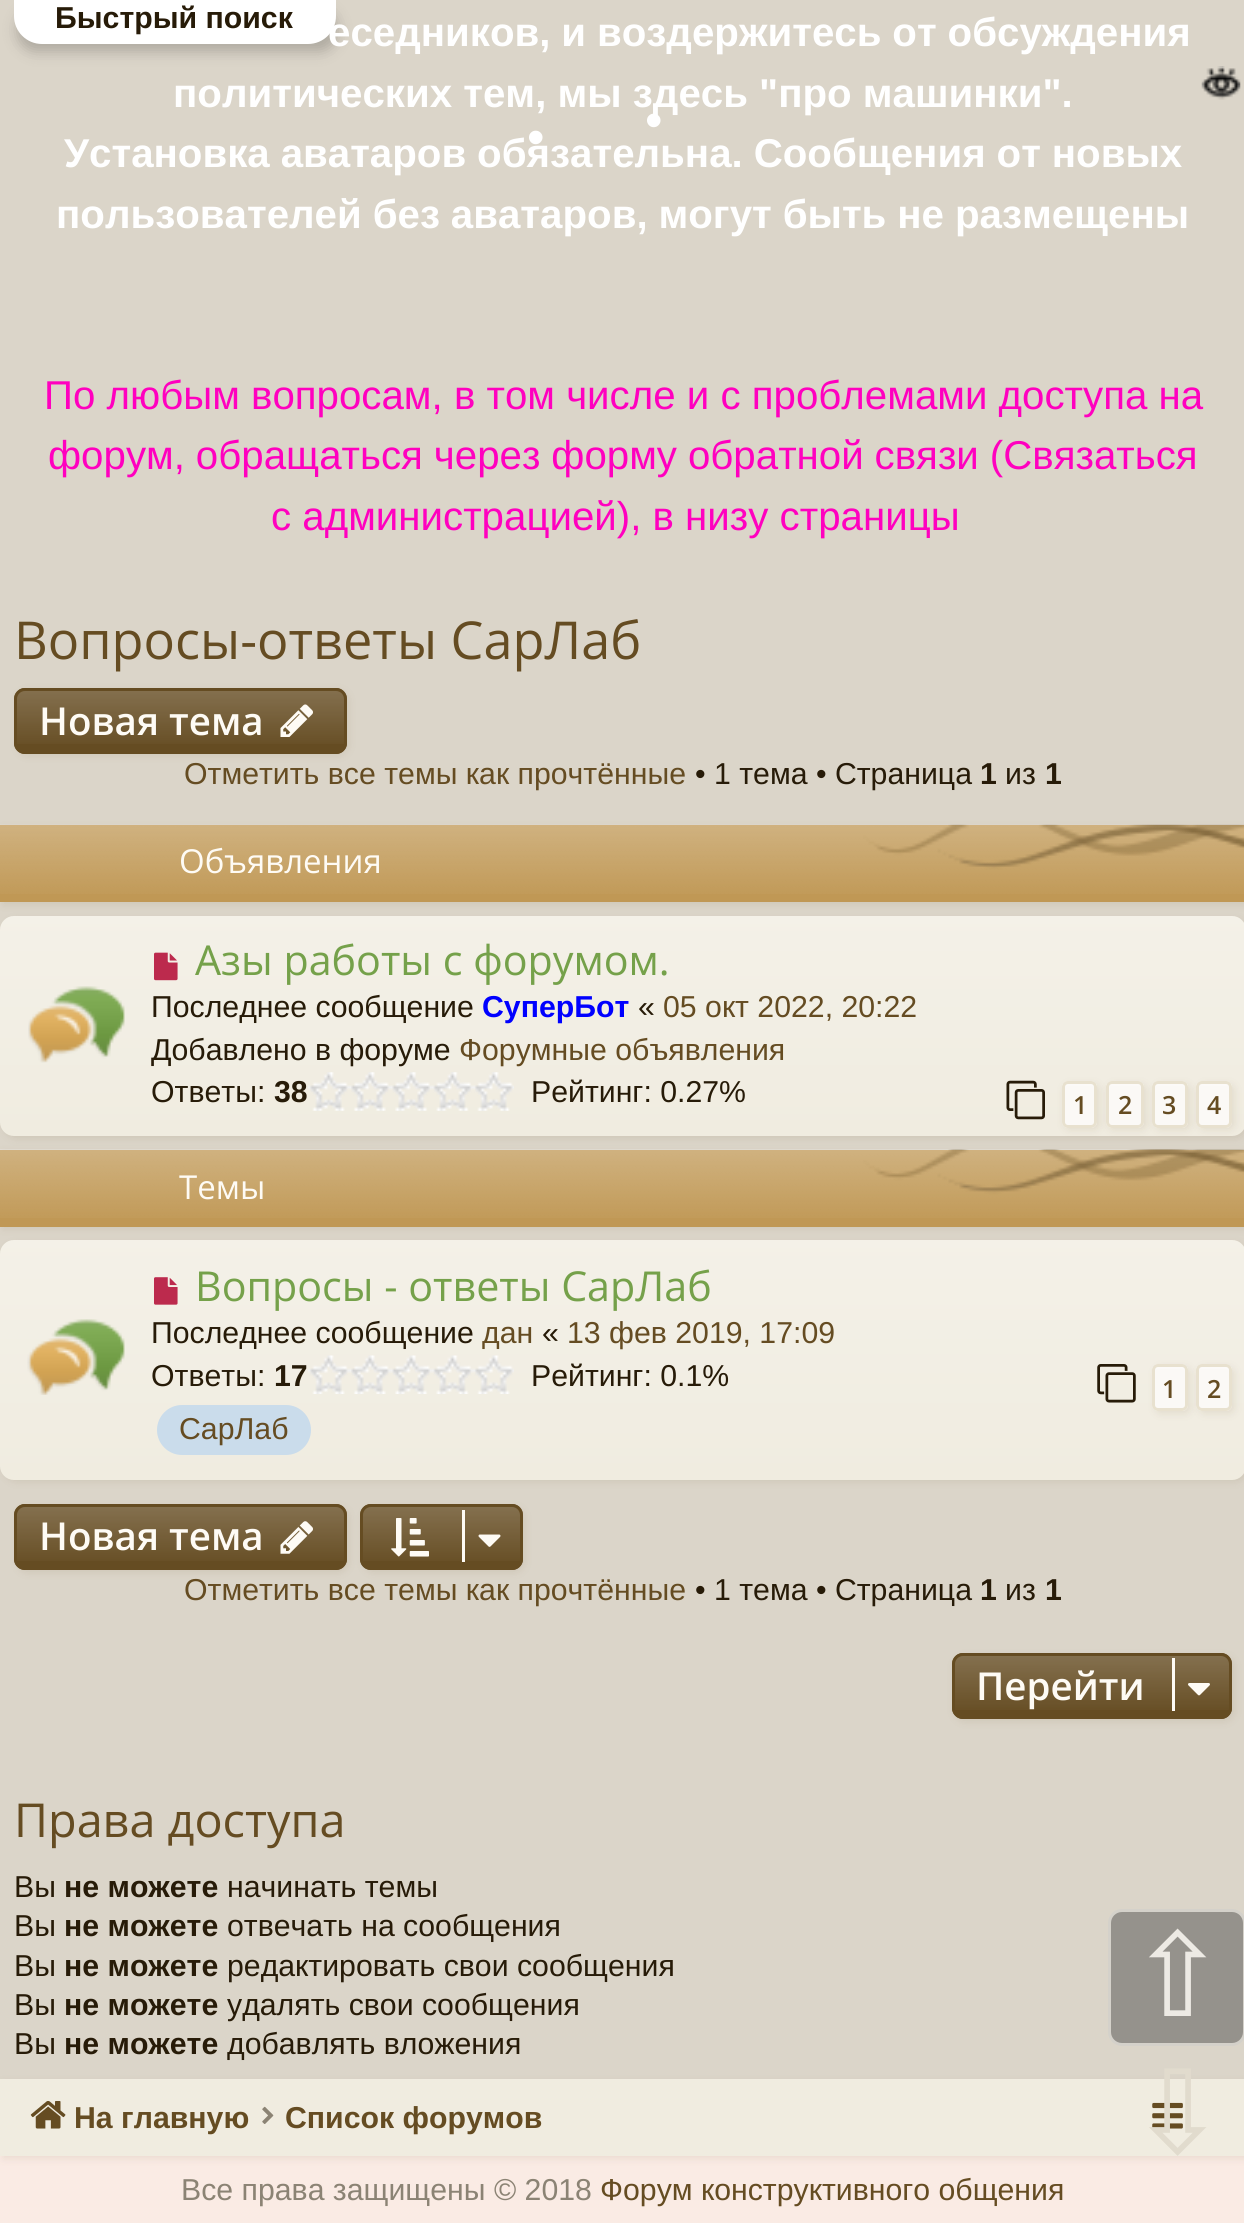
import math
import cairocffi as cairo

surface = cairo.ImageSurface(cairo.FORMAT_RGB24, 1244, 2223)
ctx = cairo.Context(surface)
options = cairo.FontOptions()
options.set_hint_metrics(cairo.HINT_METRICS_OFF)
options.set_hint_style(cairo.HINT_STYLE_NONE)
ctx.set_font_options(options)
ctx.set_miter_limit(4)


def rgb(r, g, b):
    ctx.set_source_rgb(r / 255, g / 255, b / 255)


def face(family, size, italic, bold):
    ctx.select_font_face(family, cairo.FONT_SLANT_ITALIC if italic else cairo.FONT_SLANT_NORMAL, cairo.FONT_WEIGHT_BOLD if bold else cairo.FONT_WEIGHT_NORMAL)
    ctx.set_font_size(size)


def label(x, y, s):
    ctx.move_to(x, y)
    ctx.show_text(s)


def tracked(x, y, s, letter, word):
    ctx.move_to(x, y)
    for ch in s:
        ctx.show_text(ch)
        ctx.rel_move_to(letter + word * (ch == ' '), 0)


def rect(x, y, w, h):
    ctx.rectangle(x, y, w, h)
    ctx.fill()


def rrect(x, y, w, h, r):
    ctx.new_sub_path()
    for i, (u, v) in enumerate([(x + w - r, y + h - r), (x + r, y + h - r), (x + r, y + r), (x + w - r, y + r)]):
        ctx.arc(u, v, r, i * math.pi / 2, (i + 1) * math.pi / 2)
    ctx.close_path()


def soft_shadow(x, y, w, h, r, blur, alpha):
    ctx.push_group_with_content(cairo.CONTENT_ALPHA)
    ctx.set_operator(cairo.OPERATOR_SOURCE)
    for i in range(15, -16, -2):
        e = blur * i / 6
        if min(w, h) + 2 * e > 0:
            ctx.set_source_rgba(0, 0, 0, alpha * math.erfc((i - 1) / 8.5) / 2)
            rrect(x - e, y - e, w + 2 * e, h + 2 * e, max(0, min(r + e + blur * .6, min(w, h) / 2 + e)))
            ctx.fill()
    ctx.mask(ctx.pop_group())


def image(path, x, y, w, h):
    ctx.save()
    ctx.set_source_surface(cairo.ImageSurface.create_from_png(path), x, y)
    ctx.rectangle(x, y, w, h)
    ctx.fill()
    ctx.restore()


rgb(255, 255, 255)
ctx.paint()
gradient = cairo.LinearGradient(623, -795, 623, 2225)
gradient.add_color_stop_rgba(0, 0.886, 0.867, 0.82, 1)
gradient.add_color_stop_rgba(0.18, 0.949, 0.906, 0.871, 1)
gradient.add_color_stop_rgba(1, 0.98, 0.922, 0.894, 1)
ctx.set_source(gradient)
rect(0, 2156, 1244, 67)
rgb(219, 213, 201)
rect(0, 0, 1244, 2079)
rgb(0, 0, 0)
soft_shadow(17, 8, 321, 44, 28, 7, 0.2)
rgb(255, 255, 255)
ctx.new_path()
ctx.move_to(14, 0)
ctx.line_to(336, 0)
ctx.line_to(336, 16)
ctx.curve_to(336, 31.5, 323.5, 44, 308, 44)
ctx.line_to(42, 44)
ctx.curve_to(26.5, 44, 14, 31.5, 14, 16)
ctx.close_path()
ctx.fill()
face('Liberation Sans', 30.25, 0, 1)
rgb(39, 27, 8)
label(55, 28, 'Быстрый поиск')
face('Liberation Sans', 40.25, 0, 1)
rgb(255, 255, 255)
tracked(328, 46, 'еседников, и воздержитесь от обсуждения', 0, -0.25)
label(173, 107, 'политических тем, мы здесь "про машинки".')
tracked(64, 167, 'Установка аватаров обязательна. Сообщения от новых', 0, -0.25)
tracked(56, 228, 'пользователей без аватаров, могут быть не размещены', 0, -0.25)
face('Liberation Sans', 40.25, 0, 0)
rgb(255, 0, 191)
label(44, 409, 'По любым вопросам, в том числе и с проблемами доступа на')
tracked(48, 469, 'форум, обращаться через форму обратной связи (Связаться', 0, -0.25)
label(271, 530, 'с администрацией), в низу страницы')
face('Open Sans', 52.25, 0, 0)
rgb(101, 76, 34)
label(14, 659, 'Вопросы-ответы СарЛаб')
rgb(101, 76, 34)
soft_shadow(17, 690, 332, 66, 11, 4, 0.1)
rgb(101, 76, 34)
rrect(14, 688, 333, 66, 11)
ctx.fill()
ctx.save()
rrect(14, 688, 333, 66, 11)
ctx.clip()
gradient = cairo.LinearGradient(180, 690, 180, 751)
gradient.add_color_stop_rgba(0, 1, 1, 1, 0.2)
gradient.add_color_stop_rgba(1, 1, 1, 1, 0)
ctx.set_source(gradient)
rect(14, 690, 333, 54)
ctx.restore()
rrect(15.5, 689.5, 330, 63, 9.5)
ctx.set_line_width(3)
ctx.stroke()
face('Open Sans SemiBold', 38.5, 0, 0)
rgb(254, 251, 245)
label(39, 735, 'Новая тема')
image('image0.png', 280, 704, 33, 33)
face('Liberation Sans', 30.25, 0, 0)
rgb(101, 76, 34)
label(184, 784, 'Отметить все темы как прочтённые')
rgb(39, 27, 8)
label(695, 784, '• 1 тема • Страница')
face('Liberation Sans', 30.25, 0, 1)
label(980, 784, '1')
face('Liberation Sans', 30.25, 0, 0)
label(1005, 784, 'из')
face('Liberation Sans', 30.25, 0, 1)
label(1045, 784, '1')
rgb(101, 76, 34)
soft_shadow(3, 919, 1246, 220, 14, 4, 0.1)
rgb(240, 236, 224)
rrect(0, 916, 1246, 220, 14)
ctx.fill()
gradient = cairo.LinearGradient(623, 916, 623, 1136)
gradient.add_color_stop_rgba(0, 1, 1, 1, 0.25)
gradient.add_color_stop_rgba(1, 1, 1, 1, 0)
ctx.set_source(gradient)
rrect(0, 916, 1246, 220, 14)
ctx.fill()
rgb(101, 76, 34)
soft_shadow(3, 828, 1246, 77, 0, 4, 0.1)
rgb(192, 152, 85)
rect(0, 825, 1244, 77)
image('image1.png', 0, 824, 1244, 70)
face('Open Sans', 33, 0, 0)
rgb(254, 251, 245)
label(179, 873, 'Объявления')
image('image2.png', 28, 986, 97, 77)
image('image3.png', 154, 952, 24, 29)
face('Open Sans', 41.25, 0, 0)
rgb(117, 161, 74)
label(195, 975, 'Азы работы с форумом.')
face('Liberation Sans', 30.25, 0, 0)
rgb(39, 27, 8)
label(151, 1017, 'Последнее сообщение')
face('Liberation Sans', 30.25, 0, 1)
rgb(0, 0, 255)
label(482, 1017, 'СуперБот')
face('Liberation Sans', 30.25, 0, 0)
rgb(39, 27, 8)
label(638, 1017, '«')
rgb(101, 76, 34)
label(663, 1017, '05 окт 2022, 20:22')
rgb(39, 27, 8)
label(151, 1060, 'Добавлено в форуме')
rgb(101, 76, 34)
label(459, 1060, 'Форумные объявления')
rgb(39, 27, 8)
label(151, 1102, 'Ответы:')
face('Liberation Sans', 30.25, 0, 1)
label(274, 1102, '38')
image('image4.png', 308, 1072, 206, 39)
face('Liberation Sans', 30.25, 0, 0)
label(531, 1102, 'Рейтинг: 0.27%')
image('image5.png', 1006, 1080, 39, 40)
rgb(101, 76, 34)
soft_shadow(1064, 1084, 36, 46, 6, 4, 0.1)
rgb(251, 249, 246)
rrect(1062, 1081, 35, 47, 6)
ctx.fill()
gradient = cairo.LinearGradient(1079, 1084, 1079, 1125)
gradient.add_color_stop_rgba(0, 1, 1, 1, 0.2)
gradient.add_color_stop_rgba(1, 1, 1, 1, 0)
ctx.set_source(gradient)
rect(1062, 1084, 35, 2)
rrect(1063.5, 1082.5, 32, 44, 4.5)
rgb(232, 225, 207)
ctx.stroke()
face('Open Sans SemiBold', 25, 0, 0)
rgb(101, 76, 34)
label(1073, 1114, '1')
rgb(101, 76, 34)
soft_shadow(1108, 1084, 39, 46, 6, 4, 0.1)
rgb(251, 249, 246)
rrect(1106, 1081, 38, 47, 6)
ctx.fill()
gradient = cairo.LinearGradient(1125, 1084, 1125, 1125)
gradient.add_color_stop_rgba(0, 1, 1, 1, 0.2)
gradient.add_color_stop_rgba(1, 1, 1, 1, 0)
ctx.set_source(gradient)
rect(1106, 1084, 38, 2)
rrect(1107.5, 1082.5, 35, 44, 4.5)
rgb(232, 225, 207)
ctx.stroke()
rgb(101, 76, 34)
label(1118, 1114, '2')
rgb(101, 76, 34)
soft_shadow(1155, 1084, 36, 46, 6, 4, 0.1)
rgb(251, 249, 246)
rrect(1152, 1081, 36, 47, 6)
ctx.fill()
gradient = cairo.LinearGradient(1170, 1084, 1170, 1125)
gradient.add_color_stop_rgba(0, 1, 1, 1, 0.2)
gradient.add_color_stop_rgba(1, 1, 1, 1, 0)
ctx.set_source(gradient)
rect(1152, 1084, 36, 2)
rrect(1153.5, 1082.5, 33, 44, 4.5)
rgb(232, 225, 207)
ctx.stroke()
rgb(101, 76, 34)
label(1162, 1114, '3')
rgb(101, 76, 34)
soft_shadow(1199, 1084, 36, 46, 6, 4, 0.1)
rgb(251, 249, 246)
rrect(1196, 1081, 36, 47, 6)
ctx.fill()
gradient = cairo.LinearGradient(1214, 1084, 1214, 1125)
gradient.add_color_stop_rgba(0, 1, 1, 1, 0.2)
gradient.add_color_stop_rgba(1, 1, 1, 1, 0)
ctx.set_source(gradient)
rect(1196, 1084, 36, 2)
rrect(1197.5, 1082.5, 33, 44, 4.5)
rgb(232, 225, 207)
ctx.stroke()
rgb(101, 76, 34)
label(1207, 1114, '4')
rgb(101, 76, 34)
soft_shadow(3, 1243, 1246, 239, 14, 4, 0.1)
rgb(240, 236, 224)
rrect(0, 1240, 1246, 240, 14)
ctx.fill()
gradient = cairo.LinearGradient(623, 1240, 623, 1480)
gradient.add_color_stop_rgba(0, 1, 1, 1, 0.25)
gradient.add_color_stop_rgba(1, 1, 1, 1, 0)
ctx.set_source(gradient)
rrect(0, 1240, 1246, 240, 14)
ctx.fill()
rgb(101, 76, 34)
soft_shadow(3, 1152, 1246, 77, 0, 4, 0.1)
rgb(192, 152, 85)
rect(0, 1150, 1244, 77)
image('image6.png', 0, 1149, 1244, 69)
face('Open Sans', 33, 0, 0)
rgb(254, 251, 245)
label(179, 1199, 'Темы')
image('image7.png', 27, 1319, 98, 76)
image('image8.png', 154, 1277, 24, 28)
face('Open Sans', 41.25, 0, 0)
rgb(117, 161, 74)
label(195, 1301, 'Вопросы - ответы СарЛаб')
face('Liberation Sans', 30.25, 0, 0)
rgb(39, 27, 8)
label(151, 1343, 'Последнее сообщение')
rgb(101, 76, 34)
label(482, 1343, 'дан')
rgb(39, 27, 8)
label(542, 1343, '«')
rgb(101, 76, 34)
label(567, 1343, '13 фев 2019, 17:09')
rgb(39, 27, 8)
label(151, 1386, 'Ответы:')
face('Liberation Sans', 30.25, 0, 1)
label(274, 1386, '17')
image('image9.png', 308, 1355, 206, 39)
face('Liberation Sans', 30.25, 0, 0)
label(531, 1386, 'Рейтинг: 0.1%')
image('image10.png', 1097, 1364, 39, 39)
rgb(101, 76, 34)
soft_shadow(1155, 1367, 36, 47, 6, 4, 0.1)
rgb(251, 249, 246)
rrect(1152, 1364, 36, 47, 6)
ctx.fill()
gradient = cairo.LinearGradient(1170, 1367, 1170, 1408)
gradient.add_color_stop_rgba(0, 1, 1, 1, 0.2)
gradient.add_color_stop_rgba(1, 1, 1, 1, 0)
ctx.set_source(gradient)
rect(1152, 1367, 36, 2)
rrect(1153.5, 1365.5, 33, 44, 4.5)
rgb(232, 225, 207)
ctx.stroke()
face('Open Sans SemiBold', 25, 0, 0)
rgb(101, 76, 34)
label(1162, 1398, '1')
rgb(101, 76, 34)
soft_shadow(1199, 1367, 36, 47, 6, 4, 0.1)
rgb(251, 249, 246)
rrect(1196, 1364, 36, 47, 6)
ctx.fill()
gradient = cairo.LinearGradient(1214, 1367, 1214, 1408)
gradient.add_color_stop_rgba(0, 1, 1, 1, 0.2)
gradient.add_color_stop_rgba(1, 1, 1, 1, 0)
ctx.set_source(gradient)
rect(1196, 1367, 36, 2)
rrect(1197.5, 1365.5, 33, 44, 4.5)
rgb(232, 225, 207)
ctx.stroke()
rgb(101, 76, 34)
label(1207, 1398, '2')
rgb(202, 220, 235)
rrect(157, 1405, 154, 50, 25)
ctx.fill()
face('Liberation Sans', 30.25, 0, 0)
rgb(101, 76, 34)
label(179, 1439, 'СарЛаб')
rgb(101, 76, 34)
soft_shadow(17, 1507, 332, 66, 11, 4, 0.1)
rgb(101, 76, 34)
rrect(14, 1504, 333, 66, 11)
ctx.fill()
ctx.save()
rrect(14, 1504, 333, 66, 11)
ctx.clip()
gradient = cairo.LinearGradient(180, 1507, 180, 1568)
gradient.add_color_stop_rgba(0, 1, 1, 1, 0.2)
gradient.add_color_stop_rgba(1, 1, 1, 1, 0)
ctx.set_source(gradient)
rect(14, 1507, 333, 54)
ctx.restore()
rrect(15.5, 1505.5, 330, 63, 9.5)
ctx.stroke()
face('Open Sans SemiBold', 38.5, 0, 0)
rgb(254, 251, 245)
label(39, 1550, 'Новая тема')
image('image11.png', 280, 1521, 33, 33)
rgb(101, 76, 34)
soft_shadow(363, 1507, 162, 66, 11, 4, 0.1)
rgb(101, 76, 34)
rrect(360, 1504, 163, 66, 11)
ctx.fill()
ctx.save()
rrect(360, 1504, 163, 66, 11)
ctx.clip()
gradient = cairo.LinearGradient(441, 1507, 441, 1568)
gradient.add_color_stop_rgba(0, 1, 1, 1, 0.2)
gradient.add_color_stop_rgba(1, 1, 1, 1, 0)
ctx.set_source(gradient)
rect(360, 1507, 163, 54)
ctx.restore()
rrect(361.5, 1505.5, 160, 63, 9.5)
ctx.stroke()
image('image12.png', 391, 1518, 38, 39)
rgb(254, 251, 245)
rect(462, 1510, 3, 52)
image('image13.png', 478, 1534, 23, 13)
face('Liberation Sans', 30.25, 0, 0)
rgb(101, 76, 34)
label(184, 1600, 'Отметить все темы как прочтённые')
rgb(39, 27, 8)
label(695, 1600, '• 1 тема • Страница')
face('Liberation Sans', 30.25, 0, 1)
label(980, 1600, '1')
face('Liberation Sans', 30.25, 0, 0)
label(1005, 1600, 'из')
face('Liberation Sans', 30.25, 0, 1)
label(1045, 1600, '1')
rgb(101, 76, 34)
soft_shadow(954, 1656, 281, 66, 11, 4, 0.1)
rgb(101, 76, 34)
rrect(952, 1653, 280, 66, 11)
ctx.fill()
ctx.save()
rrect(952, 1653, 280, 66, 11)
ctx.clip()
gradient = cairo.LinearGradient(1092, 1656, 1092, 1716)
gradient.add_color_stop_rgba(0, 1, 1, 1, 0.2)
gradient.add_color_stop_rgba(1, 1, 1, 1, 0)
ctx.set_source(gradient)
rect(952, 1656, 280, 54)
ctx.restore()
rrect(953.5, 1654.5, 277, 63, 9.5)
ctx.stroke()
face('Open Sans SemiBold', 38.5, 0, 0)
rgb(254, 251, 245)
label(976, 1700, 'Перейти')
rect(1172, 1658, 3, 53)
image('image14.png', 1188, 1683, 22, 13)
face('Open Sans', 46.75, 0, 0)
rgb(101, 76, 34)
label(14, 1837, 'Права доступа')
face('Liberation Sans', 30.25, 0, 0)
rgb(39, 27, 8)
label(14, 1897, 'Вы')
face('Liberation Sans', 30.25, 0, 1)
label(64, 1897, 'не можете')
face('Liberation Sans', 30.25, 0, 0)
label(227, 1897, 'начинать темы')
label(14, 1936, 'Вы')
face('Liberation Sans', 30.25, 0, 1)
label(64, 1936, 'не можете')
face('Liberation Sans', 30.25, 0, 0)
label(227, 1936, 'отвечать на сообщения')
label(14, 1976, 'Вы')
face('Liberation Sans', 30.25, 0, 1)
label(64, 1976, 'не можете')
face('Liberation Sans', 30.25, 0, 0)
label(227, 1976, 'редактировать свои сообщения')
label(14, 2015, 'Вы')
face('Liberation Sans', 30.25, 0, 1)
label(64, 2015, 'не можете')
face('Liberation Sans', 30.25, 0, 0)
label(227, 2015, 'удалять свои сообщения')
label(14, 2054, 'Вы')
face('Liberation Sans', 30.25, 0, 1)
label(64, 2054, 'не можете')
face('Liberation Sans', 30.25, 0, 0)
label(227, 2054, 'добавлять вложения')
image('image15.png', 1201, 66, 40, 34)
rgb(101, 76, 34)
soft_shadow(3, 2082, 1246, 77, 0, 4, 0.1)
rgb(240, 236, 224)
rect(0, 2079, 1244, 77)
image('image16.png', 30, 2101, 36, 28)
face('Liberation Sans', 30.25, 0, 1)
rgb(101, 76, 34)
label(74, 2128, 'На главную')
image('image17.png', 262, 2106, 12, 18)
label(285, 2128, 'Список форумов')
image('image18.png', 1152, 2102, 31, 27)
face('Liberation Sans', 50, 0, 0)
rgb(255, 255, 255)
label(645, 137, '•')
label(527, 154, '•')
rgb(149, 146, 140)
rrect(1109.5, 1910.5, 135, 134, 12.5)
ctx.fill_preserve()
rgb(212, 209, 202)
ctx.stroke()
face('DejaVu Sans', 116, 0, 0)
rgb(237, 234, 228)
label(1129, 2016, '⇧')
rgb(225, 219, 205)
label(1129, 2153, '⇩')
face('Liberation Sans', 30.25, 0, 0)
rgb(139, 131, 116)
label(181, 2200, 'Все права защищены © 2018')
rgb(101, 76, 34)
label(600, 2200, 'Форум конструктивного общения')
surface.write_to_png('render.png')
